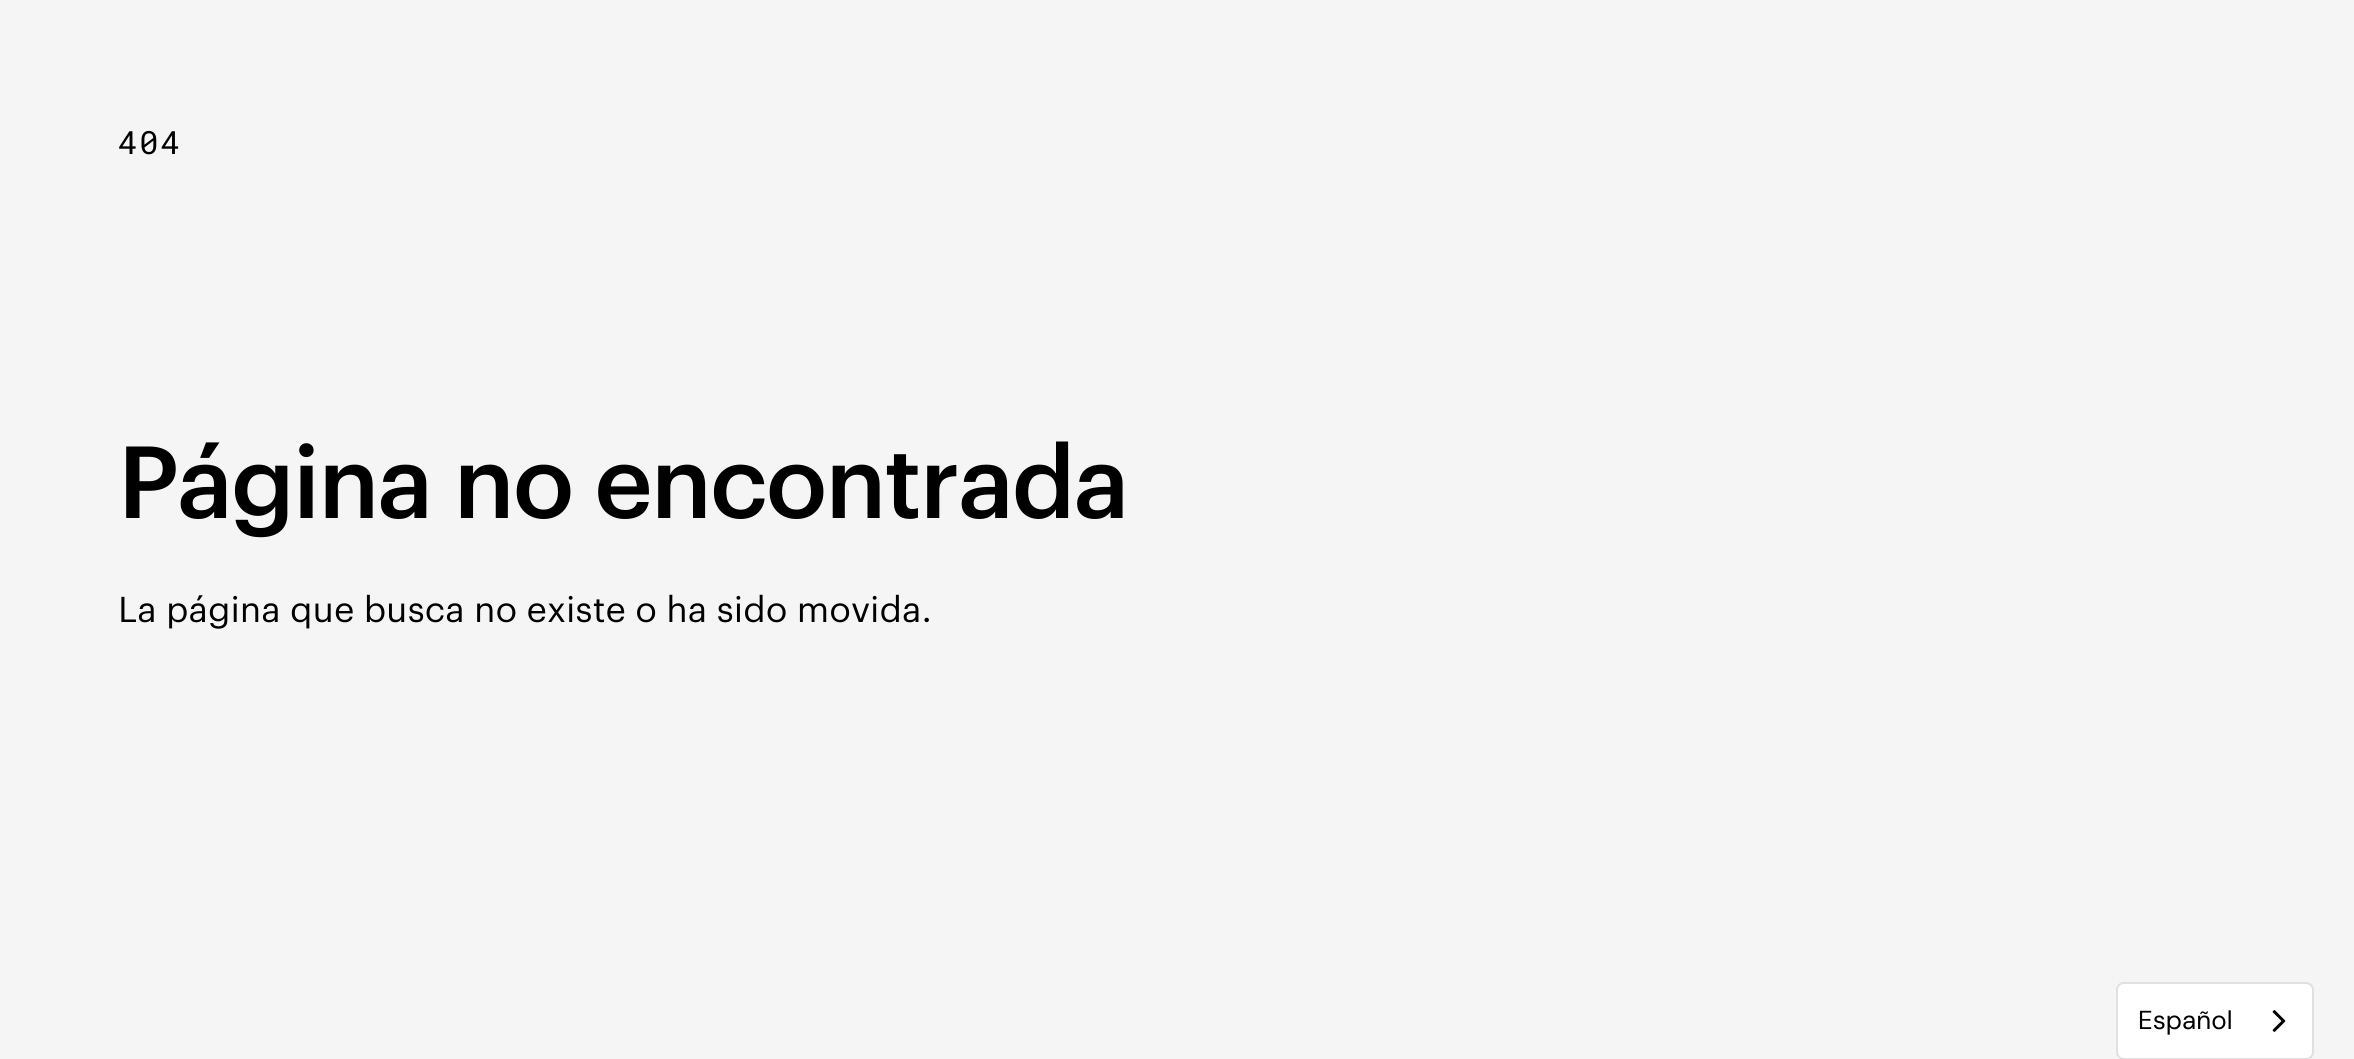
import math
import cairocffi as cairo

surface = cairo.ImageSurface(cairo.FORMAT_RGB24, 2354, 1059)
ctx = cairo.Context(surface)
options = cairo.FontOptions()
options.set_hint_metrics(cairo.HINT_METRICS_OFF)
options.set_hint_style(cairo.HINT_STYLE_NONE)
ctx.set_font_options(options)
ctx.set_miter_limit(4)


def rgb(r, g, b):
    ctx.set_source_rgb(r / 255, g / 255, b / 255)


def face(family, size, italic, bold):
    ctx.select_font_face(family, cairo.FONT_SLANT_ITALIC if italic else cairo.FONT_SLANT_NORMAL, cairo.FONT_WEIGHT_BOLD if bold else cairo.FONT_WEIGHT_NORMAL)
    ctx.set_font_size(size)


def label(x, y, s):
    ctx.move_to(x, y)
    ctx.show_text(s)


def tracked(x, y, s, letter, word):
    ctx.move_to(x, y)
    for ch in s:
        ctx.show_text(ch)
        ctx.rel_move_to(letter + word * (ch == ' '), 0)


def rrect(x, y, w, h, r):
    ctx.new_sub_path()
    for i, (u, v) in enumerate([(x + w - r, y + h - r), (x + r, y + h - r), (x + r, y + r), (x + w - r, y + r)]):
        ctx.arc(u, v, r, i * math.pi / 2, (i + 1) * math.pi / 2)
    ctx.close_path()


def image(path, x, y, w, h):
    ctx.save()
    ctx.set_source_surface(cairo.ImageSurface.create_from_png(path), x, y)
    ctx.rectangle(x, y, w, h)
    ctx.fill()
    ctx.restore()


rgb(245, 245, 245)
ctx.paint()
face('Roboto Mono', 32, 0, 0)
rgb(0, 0, 0)
tracked(118, 154, '404', 2, 0)
face('Graphik Medium', 100, 0, 0)
tracked(118, 518, 'Página no encontrada', -2, 0)
face('Graphik', 35.2, 0, 0)
label(118, 622, 'La página que busca no existe o ha sido movida.')
rgb(255, 255, 255)
rrect(2117, 983, 196, 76, 7)
ctx.fill_preserve()
rgb(224, 224, 224)
ctx.stroke()
face('DM Sans', 26, 0, 0)
rgb(0, 0, 0)
label(2138, 1029, 'Español')
image('image0.png', 2272, 1010, 14, 22)
surface.write_to_png('render.png')
